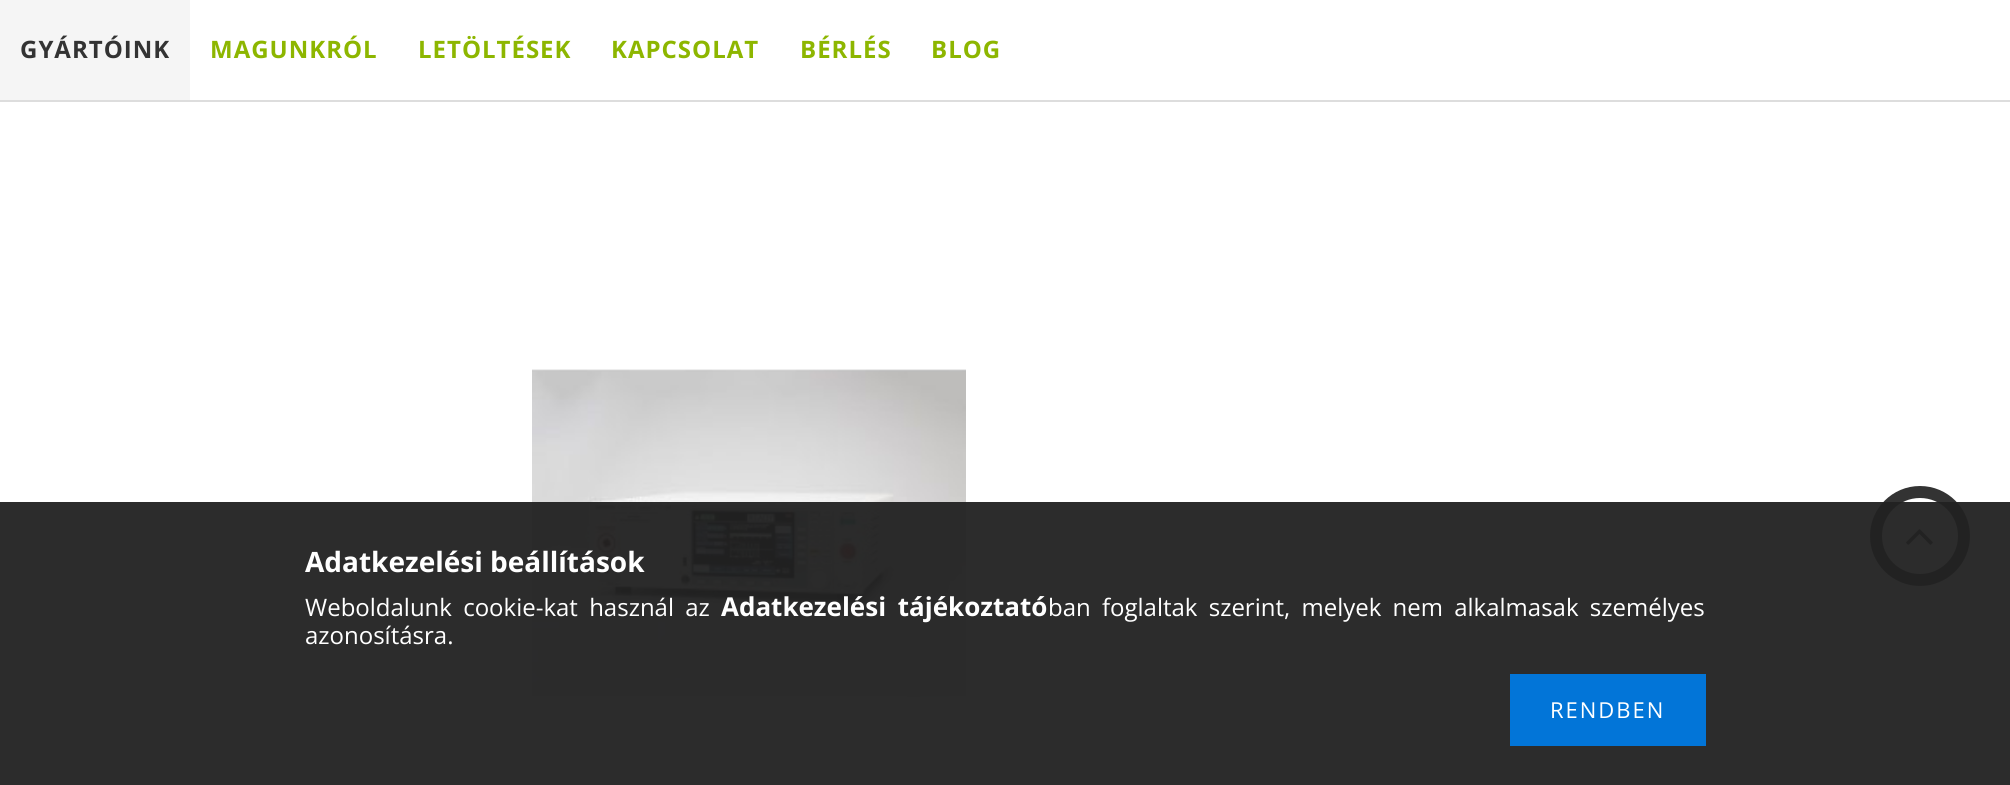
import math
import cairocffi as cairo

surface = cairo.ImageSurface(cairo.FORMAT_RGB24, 2010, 785)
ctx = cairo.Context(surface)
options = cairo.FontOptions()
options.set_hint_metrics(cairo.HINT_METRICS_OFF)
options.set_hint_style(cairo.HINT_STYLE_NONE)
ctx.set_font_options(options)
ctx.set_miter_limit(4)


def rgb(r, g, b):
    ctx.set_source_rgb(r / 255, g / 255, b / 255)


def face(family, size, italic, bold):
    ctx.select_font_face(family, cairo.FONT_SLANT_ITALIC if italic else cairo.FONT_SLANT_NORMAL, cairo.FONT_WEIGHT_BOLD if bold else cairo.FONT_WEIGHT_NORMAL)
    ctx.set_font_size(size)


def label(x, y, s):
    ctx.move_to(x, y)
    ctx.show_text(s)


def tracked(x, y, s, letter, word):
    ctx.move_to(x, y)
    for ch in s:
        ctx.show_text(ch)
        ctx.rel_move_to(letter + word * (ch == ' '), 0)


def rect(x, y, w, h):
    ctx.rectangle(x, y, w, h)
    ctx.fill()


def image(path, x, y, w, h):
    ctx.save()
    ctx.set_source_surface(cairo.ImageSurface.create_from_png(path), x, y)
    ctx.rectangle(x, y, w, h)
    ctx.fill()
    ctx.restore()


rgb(255, 255, 255)
ctx.paint()
rgb(221, 221, 221)
rect(0, 100, 2010, 2)
rgb(245, 245, 245)
rect(0, 0, 190, 100)
face('Open Sans', 24, 0, 1)
rgb(51, 51, 51)
tracked(20, 58, 'GYÁRTÓINK', 1, 0)
rgb(141, 182, 0)
tracked(210, 58, 'MAGUNKRÓL', 1, 0)
tracked(418, 58, 'LETÖLTÉSEK', 1, 0)
tracked(611, 58, 'KAPCSOLAT', 1, 0)
tracked(800, 58, 'BÉRLÉS', 1, 0)
tracked(931, 58, 'BLOG', 1, 0)
image('image0.png', 532, 369, 434, 328)
ctx.arc(1920, 536, 44, 0, 2 * math.pi)
rgb(51, 51, 51)
ctx.set_line_width(12)
ctx.stroke()
image('image1.png', 1906, 529, 27, 16)
ctx.set_source_rgba(0.133, 0.133, 0.133, 0.95)
rect(0, 502, 2010, 283)
face('Open Sans', 28, 0, 1)
rgb(255, 255, 255)
label(305, 572, 'Adatkezelési beállítások')
face('Open Sans', 24, 0, 0)
tracked(305, 616, 'Weboldalunk cookie-kat használ az', 0, 5)
face('Open Sans', 26, 0, 1)
tracked(721, 616, 'Adatkezelési tájékoztató', 0, 5)
face('Open Sans', 24, 0, 0)
tracked(1048, 616, 'ban foglaltak szerint, melyek nem alkalmasak személyes', 0, 5)
label(305, 644, 'azonosításra.')
rgb(2, 117, 216)
rect(1510, 674, 196, 72)
face('Open Sans', 22, 0, 0)
rgb(255, 255, 255)
tracked(1550, 718, 'RENDBEN', 2, 0)
surface.write_to_png('render.png')
